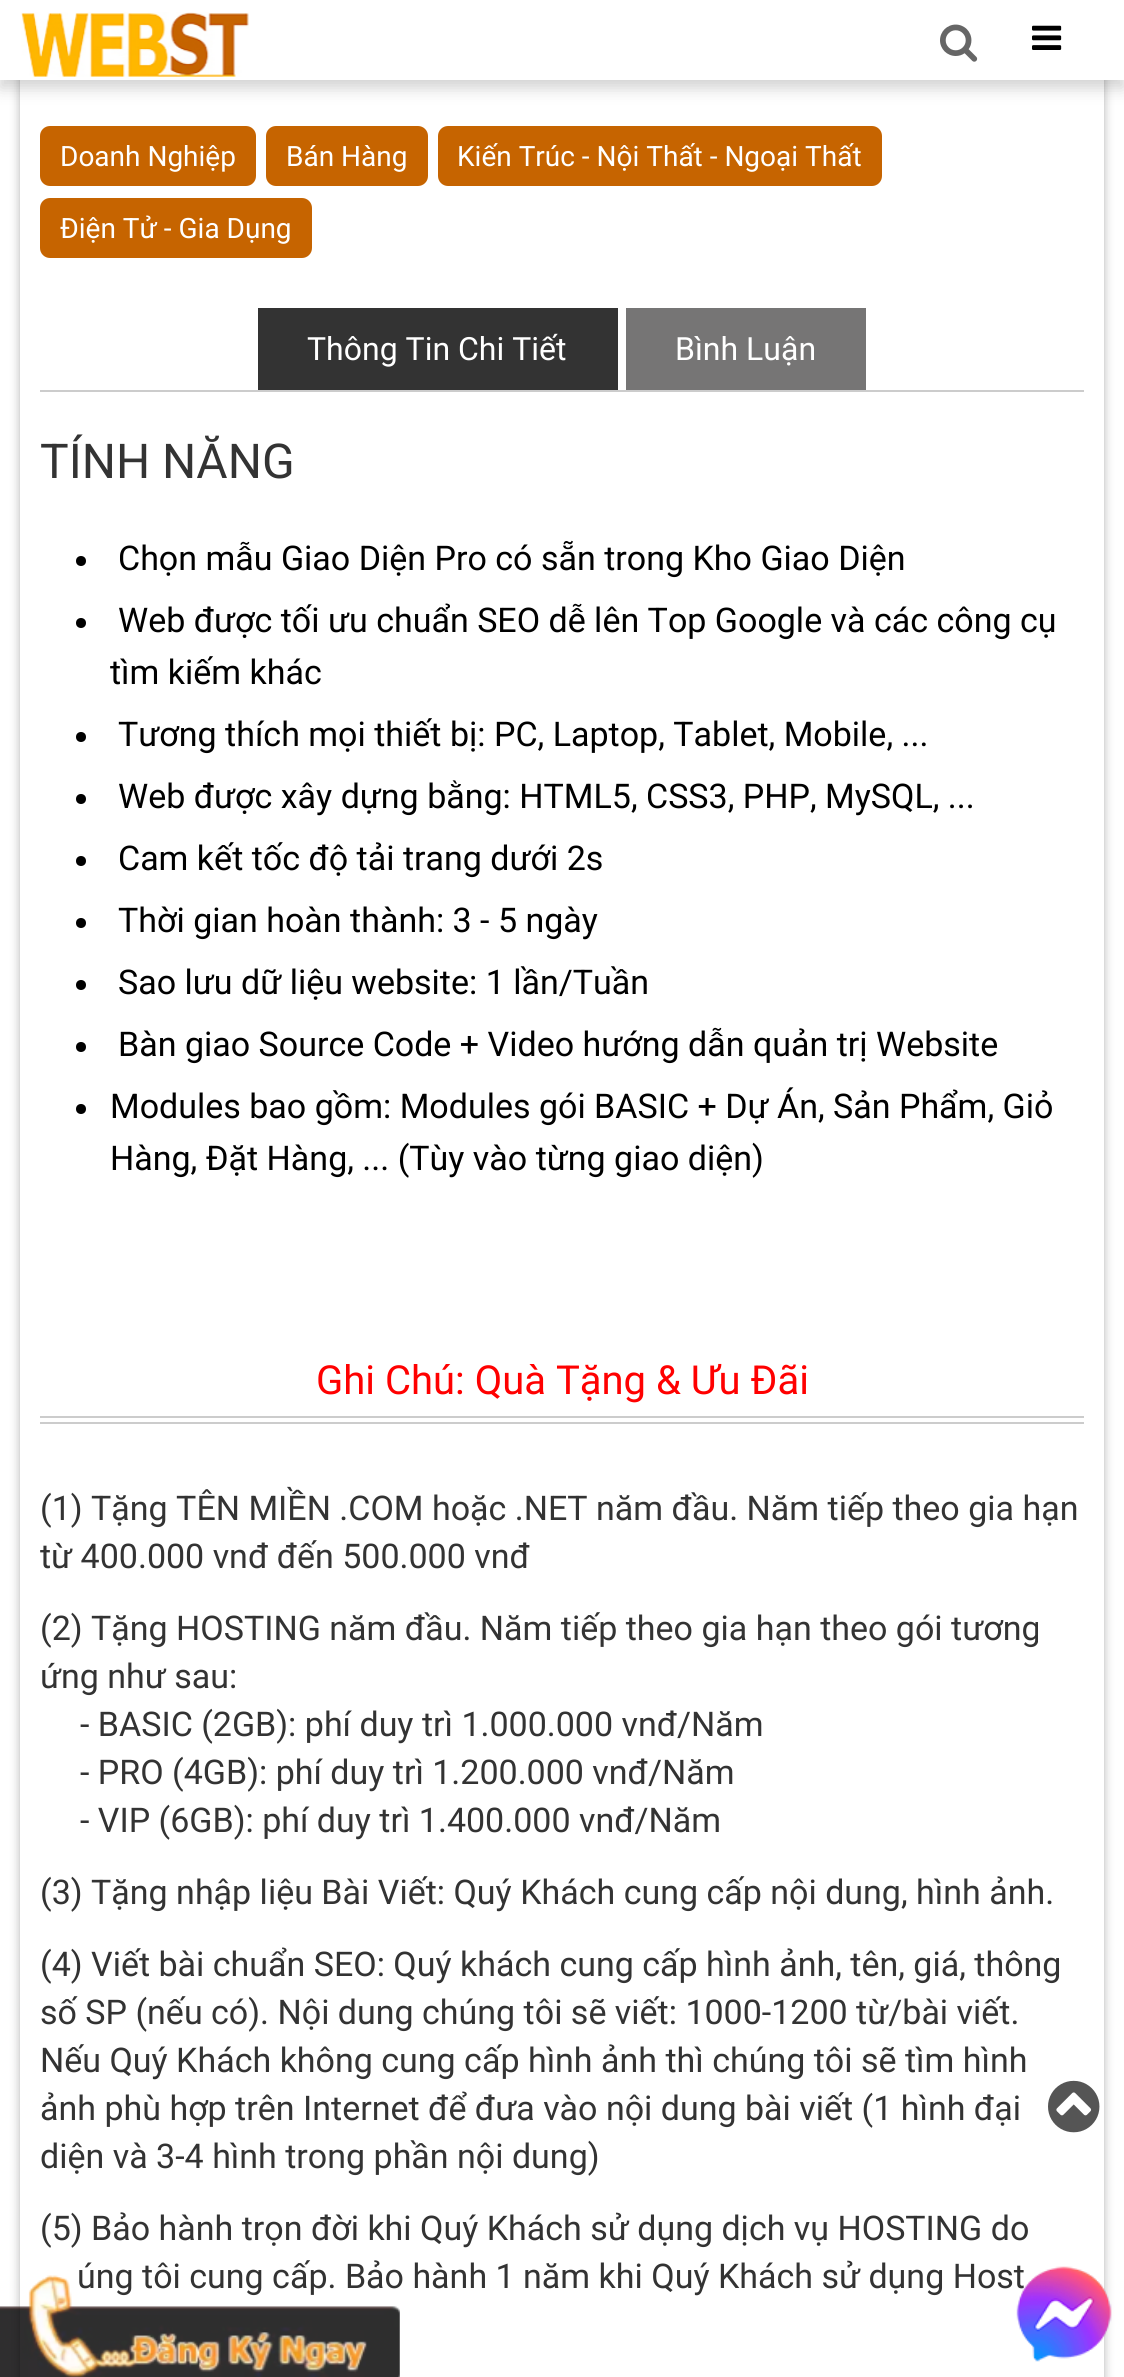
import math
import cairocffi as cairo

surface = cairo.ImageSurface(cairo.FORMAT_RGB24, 1124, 2377)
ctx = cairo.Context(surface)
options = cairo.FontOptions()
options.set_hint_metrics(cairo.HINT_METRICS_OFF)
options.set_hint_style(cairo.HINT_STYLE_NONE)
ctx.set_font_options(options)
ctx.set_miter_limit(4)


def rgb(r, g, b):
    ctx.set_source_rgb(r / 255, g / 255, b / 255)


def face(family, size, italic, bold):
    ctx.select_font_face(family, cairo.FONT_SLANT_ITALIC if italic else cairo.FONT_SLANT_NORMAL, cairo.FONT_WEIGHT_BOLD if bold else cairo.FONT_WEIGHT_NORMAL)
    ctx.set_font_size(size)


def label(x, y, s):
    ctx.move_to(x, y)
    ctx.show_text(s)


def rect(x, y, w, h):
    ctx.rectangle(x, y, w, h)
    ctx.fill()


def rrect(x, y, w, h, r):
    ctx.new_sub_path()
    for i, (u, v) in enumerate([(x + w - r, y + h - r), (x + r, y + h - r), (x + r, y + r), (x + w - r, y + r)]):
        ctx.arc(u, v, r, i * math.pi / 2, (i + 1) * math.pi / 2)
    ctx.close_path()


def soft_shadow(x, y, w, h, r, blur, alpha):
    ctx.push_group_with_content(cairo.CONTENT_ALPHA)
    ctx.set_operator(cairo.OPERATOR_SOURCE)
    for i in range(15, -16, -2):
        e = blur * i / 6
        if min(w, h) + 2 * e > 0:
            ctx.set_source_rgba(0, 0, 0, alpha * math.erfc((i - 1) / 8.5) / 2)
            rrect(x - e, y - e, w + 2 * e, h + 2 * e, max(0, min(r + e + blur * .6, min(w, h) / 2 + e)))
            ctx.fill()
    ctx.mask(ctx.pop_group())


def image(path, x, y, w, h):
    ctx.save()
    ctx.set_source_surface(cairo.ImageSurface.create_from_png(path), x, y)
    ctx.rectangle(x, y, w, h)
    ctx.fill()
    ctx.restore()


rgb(255, 255, 255)
ctx.paint()
rgb(0, 0, 0)
soft_shadow(0, 8, 1124, 80, 0, 8, 0.18)
ctx.save()
ctx.set_fill_rule(cairo.FILL_RULE_EVEN_ODD)
ctx.new_path()
ctx.move_to(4, 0)
ctx.line_to(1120, 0)
ctx.line_to(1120, 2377)
ctx.line_to(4, 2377)
ctx.close_path()
ctx.move_to(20, -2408)
ctx.line_to(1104, -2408)
ctx.line_to(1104, 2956)
ctx.line_to(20, 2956)
ctx.close_path()
ctx.clip()
soft_shadow(20, -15, 1084, 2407, 0, 5, 0.3)
ctx.restore()
rgb(255, 255, 255)
rect(0, 0, 1124, 80)
image('image0.png', 21, 12, 228, 65)
image('image1.png', 940, 24, 38, 38)
image('image2.png', 1032, 25, 30, 25)
rgb(198, 100, 0)
rrect(40, 126, 216, 60, 10)
ctx.fill()
face('Roboto', 28, 0, 0)
rgb(255, 255, 255)
label(60, 166, 'Doanh Nghiệp')
rgb(198, 100, 0)
rrect(266, 126, 162, 60, 10)
ctx.fill()
rgb(255, 255, 255)
label(286, 166, 'Bán Hàng')
rgb(198, 100, 0)
rrect(438, 126, 444, 60, 10)
ctx.fill()
rgb(255, 255, 255)
label(457, 166, 'Kiến Trúc - Nội Thất - Ngoại Thất')
rgb(198, 100, 0)
rrect(40, 198, 272, 60, 10)
ctx.fill()
rgb(255, 255, 255)
label(60, 238, 'Điện Tử - Gia Dụng')
rgb(204, 204, 204)
rect(40, 390, 1044, 2)
rgb(51, 51, 51)
rect(258, 308, 360, 82)
face('Roboto', 32, 0, 0)
rgb(255, 255, 255)
label(307, 360, 'Thông Tin Chi Tiết')
rgb(118, 117, 117)
rect(626, 308, 240, 82)
rgb(255, 255, 255)
label(675, 360, 'Bình Luận')
face('Roboto', 48, 0, 0)
rgb(51, 51, 51)
label(40, 478, 'TÍNH NĂNG')
rgb(0, 0, 0)
ctx.new_path()
ctx.arc(81, 561, 5, 0, 2 * math.pi)
ctx.fill()
face('Roboto', 34, 0, 0)
label(118, 570, 'Chọn mẫu Giao Diện Pro có sẵn trong Kho Giao Diện')
ctx.new_path()
ctx.arc(81, 623, 5, 0, 2 * math.pi)
ctx.fill()
label(118, 632, 'Web được tối ưu chuẩn SEO dễ lên Top Google và các công cụ')
label(110, 684, 'tìm kiếm khác')
ctx.new_path()
ctx.arc(81, 737, 5, 0, 2 * math.pi)
ctx.fill()
label(118, 746, 'Tương thích mọi thiết bị: PC, Laptop, Tablet, Mobile, ...')
ctx.new_path()
ctx.arc(81, 799, 5, 0, 2 * math.pi)
ctx.fill()
label(118, 808, 'Web được xây dựng bằng: HTML5, CSS3, PHP, MySQL, ...')
ctx.new_path()
ctx.arc(81, 861, 5, 0, 2 * math.pi)
ctx.fill()
label(118, 870, 'Cam kết tốc độ tải trang dưới 2s')
ctx.new_path()
ctx.arc(81, 923, 5, 0, 2 * math.pi)
ctx.fill()
label(118, 932, 'Thời gian hoàn thành: 3 - 5 ngày')
ctx.new_path()
ctx.arc(81, 985, 5, 0, 2 * math.pi)
ctx.fill()
label(118, 994, 'Sao lưu dữ liệu website: 1 lần/Tuần')
ctx.new_path()
ctx.arc(81, 1047, 5, 0, 2 * math.pi)
ctx.fill()
label(118, 1056, 'Bàn giao Source Code + Video hướng dẫn quản trị Website')
ctx.new_path()
ctx.arc(81, 1109, 5, 0, 2 * math.pi)
ctx.fill()
label(110, 1118, 'Modules bao gồm: Modules gói BASIC + Dự Án, Sản Phẩm, Giỏ')
label(110, 1170, 'Hàng, Đặt Hàng, ... (Tùy vào từng giao diện)')
rgb(204, 204, 204)
rect(40, 1416, 1044, 2)
rect(40, 1422, 1044, 2)
face('Roboto', 40, 0, 0)
rgb(255, 0, 0)
label(316, 1394, 'Ghi Chú: Quà Tặng & Ưu Đãi')
face('Roboto', 34, 0, 0)
rgb(51, 51, 51)
label(40, 1520, '(1) Tặng TÊN MIỀN .COM hoặc .NET năm đầu. Năm tiếp theo gia hạn')
label(40, 1568, 'từ 400.000 vnđ đến 500.000 vnđ')
label(40, 1640, '(2) Tặng HOSTING năm đầu. Năm tiếp theo gia hạn theo gói tương')
label(40, 1688, 'ứng như sau:')
label(80, 1736, '- BASIC (2GB): phí duy trì 1.000.000 vnđ/Năm')
label(80, 1784, '- PRO (4GB): phí duy trì 1.200.000 vnđ/Năm')
label(80, 1832, '- VIP (6GB): phí duy trì 1.400.000 vnđ/Năm')
label(40, 1904, '(3) Tặng nhập liệu Bài Viết: Quý Khách cung cấp nội dung, hình ảnh.')
label(40, 1976, '(4) Viết bài chuẩn SEO: Quý khách cung cấp hình ảnh, tên, giá, thông')
label(40, 2024, 'số SP (nếu có). Nội dung chúng tôi sẽ viết: 1000-1200 từ/bài viết.')
label(40, 2072, 'Nếu Quý Khách không cung cấp hình ảnh thì chúng tôi sẽ tìm hình')
label(40, 2120, 'ảnh phù hợp trên Internet để đưa vào nội dung bài viết (1 hình đại')
label(40, 2168, 'diện và 3-4 hình trong phần nội dung)')
label(40, 2240, '(5) Bảo hành trọn đời khi Quý Khách sử dụng dịch vụ HOSTING do')
label(77, 2288, 'úng tôi cung cấp. Bảo hành 1 năm khi Quý Khách sử dụng Host')
image('image3.png', 1048, 2080, 52, 53)
image('image4.png', 0, 2275, 400, 102)
image('image5.png', 1016, 2266, 96, 96)
surface.write_to_png('render.png')
